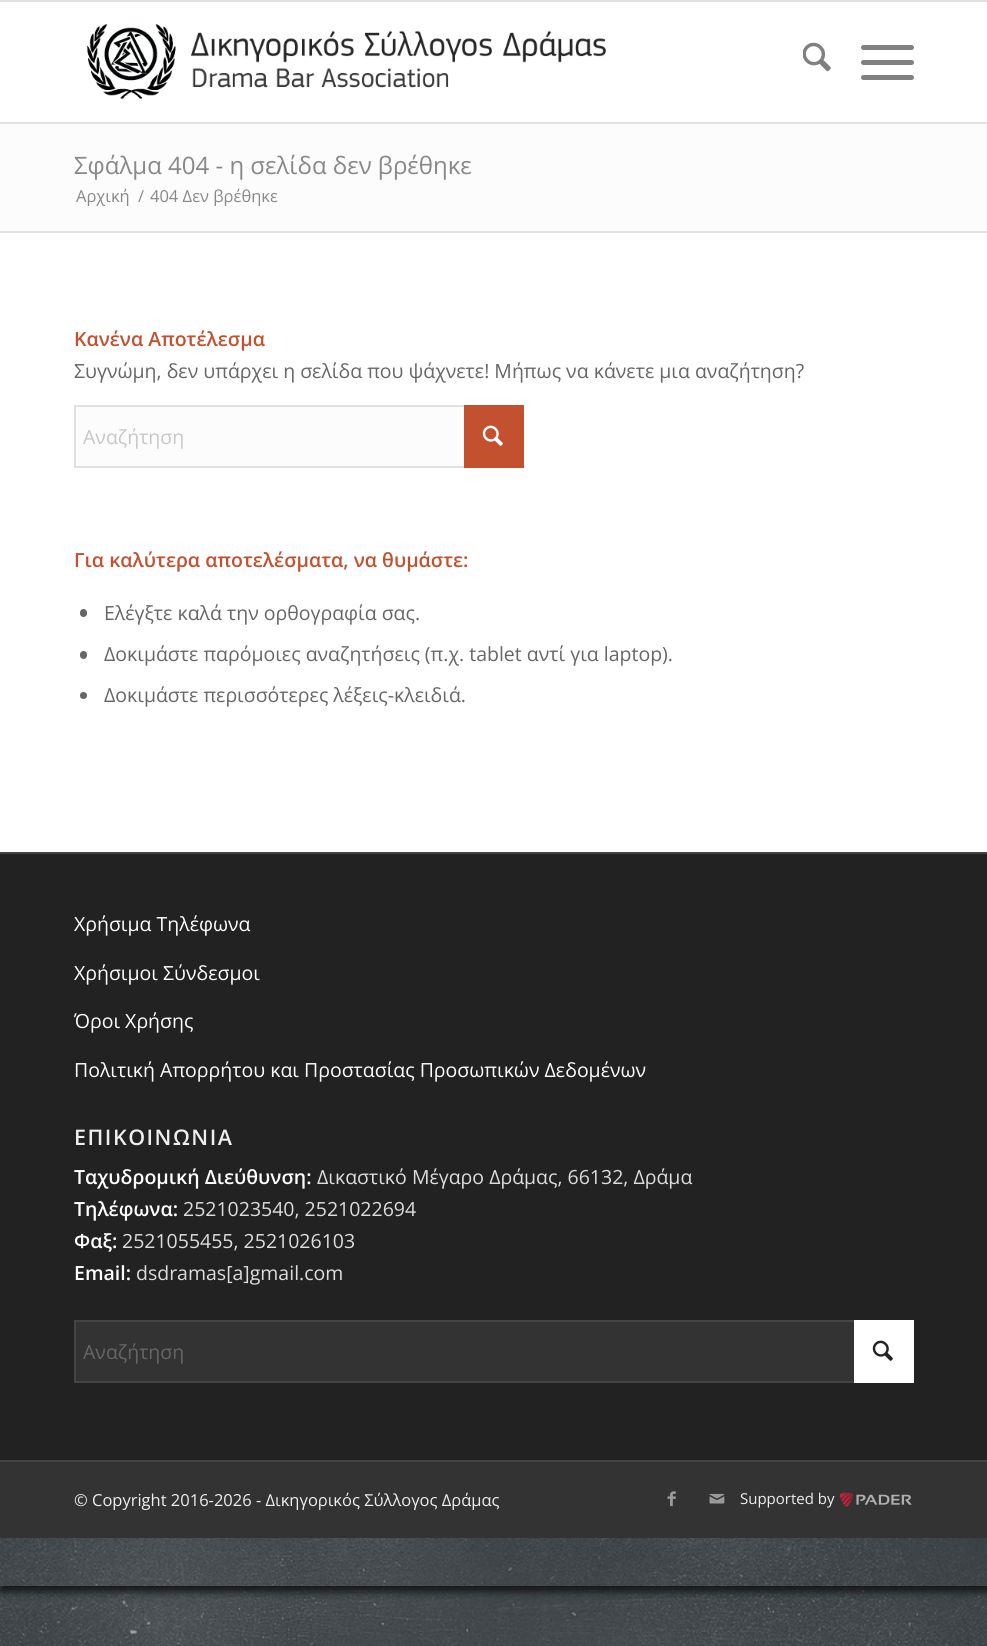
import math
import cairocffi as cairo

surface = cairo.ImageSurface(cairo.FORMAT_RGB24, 987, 1646)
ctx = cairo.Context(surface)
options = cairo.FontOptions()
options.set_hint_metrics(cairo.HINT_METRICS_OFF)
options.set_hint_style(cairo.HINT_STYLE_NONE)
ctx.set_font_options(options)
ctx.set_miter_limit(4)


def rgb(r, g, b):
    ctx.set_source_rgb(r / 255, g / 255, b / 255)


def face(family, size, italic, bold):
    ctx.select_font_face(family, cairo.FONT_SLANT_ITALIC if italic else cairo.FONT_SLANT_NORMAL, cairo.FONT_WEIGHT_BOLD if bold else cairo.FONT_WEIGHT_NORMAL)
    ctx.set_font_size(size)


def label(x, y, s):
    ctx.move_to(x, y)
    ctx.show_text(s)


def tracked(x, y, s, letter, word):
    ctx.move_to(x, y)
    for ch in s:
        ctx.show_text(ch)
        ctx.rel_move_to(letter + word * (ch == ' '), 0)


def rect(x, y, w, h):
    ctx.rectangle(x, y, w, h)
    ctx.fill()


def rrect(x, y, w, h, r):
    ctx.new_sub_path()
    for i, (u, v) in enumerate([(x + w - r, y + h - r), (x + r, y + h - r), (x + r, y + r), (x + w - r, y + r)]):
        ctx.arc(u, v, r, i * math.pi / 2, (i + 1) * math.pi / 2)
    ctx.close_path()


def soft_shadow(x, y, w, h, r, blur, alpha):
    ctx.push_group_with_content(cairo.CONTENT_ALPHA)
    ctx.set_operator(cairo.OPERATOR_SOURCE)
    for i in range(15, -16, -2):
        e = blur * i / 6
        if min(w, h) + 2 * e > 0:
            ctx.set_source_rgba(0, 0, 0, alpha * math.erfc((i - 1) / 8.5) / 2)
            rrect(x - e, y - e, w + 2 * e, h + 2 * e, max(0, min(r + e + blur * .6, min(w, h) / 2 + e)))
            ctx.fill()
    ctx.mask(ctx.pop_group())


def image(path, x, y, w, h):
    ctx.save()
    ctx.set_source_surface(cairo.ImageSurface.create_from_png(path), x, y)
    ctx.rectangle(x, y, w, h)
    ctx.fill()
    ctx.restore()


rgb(54, 61, 64)
ctx.paint()
image('image0.png', 0, 1538, 987, 108)
rgb(225, 225, 225)
rect(0, 0, 987, 2)
rect(0, 122, 987, 2)
rgb(255, 255, 255)
rect(0, 2, 987, 120)
image('image1.png', 87, 23, 519, 77)
image('image2.png', 803, 42, 28, 30)
rgb(128, 128, 128)
rrect(861, 60, 53, 5, 2.5)
ctx.fill()
rrect(861, 45, 53, 5, 2.5)
ctx.fill()
rrect(861, 75, 53, 5, 2.5)
ctx.fill()
rgb(255, 255, 255)
rect(0, 233, 987, 619)
rgb(252, 252, 252)
rect(0, 124, 987, 107)
face('Open Sans', 24, 0, 0)
rgb(136, 136, 136)
label(74, 174, 'Σφάλμα 404 - η σελίδα δεν βρέθηκε')
face('Open Sans', 16.5, 0, 0)
label(76, 202, 'Αρχική')
label(138, 202, '/')
label(150, 202, '404 Δεν βρέθηκε')
rgb(225, 225, 225)
rect(0, 231, 987, 2)
face('Open Sans SemiBold', 19.5, 0, 0)
rgb(195, 81, 47)
label(74, 346, 'Κανένα Αποτέλεσμα')
face('Open Sans', 19.5, 0, 0)
rgb(102, 102, 102)
label(74, 378, 'Συγνώμη, δεν υπάρχει η σελίδα που ψάχνετε! Μήπως να κάνετε μια αναζήτηση?')
rgb(252, 252, 252)
rect(76, 407, 388, 59)
ctx.rectangle(75, 406, 448, 61)
rgb(225, 225, 225)
ctx.stroke()
rgb(195, 81, 47)
rect(464, 405, 60, 63)
rgb(199, 199, 199)
label(83, 444, 'Αναζήτηση')
image('image3.png', 482, 425, 21, 21)
face('Open Sans SemiBold', 19.5, 0, 0)
rgb(195, 81, 47)
label(74, 567, 'Για καλύτερα αποτελέσματα, να θυμάστε:')
rgb(102, 102, 102)
rrect(80, 609, 7, 8, 3.5)
ctx.fill()
face('Open Sans', 19.5, 0, 0)
label(104, 620, 'Ελέγξτε καλά την ορθογραφία σας.')
rrect(80, 651, 7, 8, 3.5)
ctx.fill()
label(104, 661, 'Δοκιμάστε παρόμοιες αναζητήσεις (π.χ. tablet αντί για laptop).')
ctx.new_path()
ctx.arc(83.5, 695.5, 3.5, 0, 2 * math.pi)
ctx.fill()
label(104, 702, 'Δοκιμάστε περισσότερες λέξεις-κλειδιά.')
rgb(34, 34, 34)
rect(0, 854, 987, 606)
rgb(68, 68, 68)
rect(0, 852, 987, 2)
rgb(255, 255, 255)
label(74, 931, 'Χρήσιμα Τηλέφωνα')
label(74, 980, 'Χρήσιμοι Σύνδεσμοι')
label(74, 1028, 'Όροι Χρήσης')
label(74, 1077, 'Πολιτική Απορρήτου και Προστασίας Προσωπικών Δεδομένων')
face('Open Sans SemiBold', 21.5, 0, 0)
rgb(238, 238, 238)
tracked(74, 1145, 'ΕΠΙΚΟΙΝΩΝΙΑ', 1.5, 0)
face('Open Sans SemiBold', 19.5, 0, 0)
rgb(255, 255, 255)
label(74, 1184, 'Ταχυδρομική Διεύθυνση:')
face('Open Sans', 19.5, 0, 0)
rgb(221, 221, 221)
label(317, 1184, 'Δικαστικό Μέγαρο Δράμας, 66132, Δράμα')
face('Open Sans SemiBold', 19.5, 0, 0)
rgb(255, 255, 255)
label(74, 1216, 'Τηλέφωνα:')
face('Open Sans', 19.5, 0, 0)
rgb(221, 221, 221)
label(183, 1216, '2521023540, 2521022694')
face('Open Sans SemiBold', 19.5, 0, 0)
rgb(255, 255, 255)
label(74, 1248, 'Φαξ:')
face('Open Sans', 19.5, 0, 0)
rgb(221, 221, 221)
label(122, 1248, '2521055455, 2521026103')
face('Open Sans SemiBold', 19.5, 0, 0)
rgb(255, 255, 255)
label(74, 1280, 'Email:')
face('Open Sans', 19.5, 0, 0)
rgb(221, 221, 221)
label(136, 1280, 'dsdramas[a]gmail.com')
rgb(51, 51, 51)
rect(76, 1322, 778, 59)
ctx.rectangle(75, 1321, 838, 61)
rgb(68, 68, 68)
ctx.stroke()
rgb(255, 255, 255)
rect(854, 1320, 60, 63)
rgb(102, 102, 102)
label(83, 1359, 'Αναζήτηση')
image('image4.png', 872, 1340, 21, 21)
ctx.save()
ctx.set_fill_rule(cairo.FILL_RULE_EVEN_ODD)
ctx.new_path()
ctx.move_to(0, 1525)
ctx.line_to(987, 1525)
ctx.line_to(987, 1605)
ctx.line_to(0, 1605)
ctx.close_path()
ctx.move_to(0, 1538)
ctx.line_to(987, 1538)
ctx.line_to(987, 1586)
ctx.line_to(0, 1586)
ctx.close_path()
ctx.clip()
rgb(22, 22, 22)
soft_shadow(0, 1538, 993, 54, 0, 4, 1)
ctx.restore()
rgb(51, 51, 51)
rect(0, 1462, 987, 76)
rgb(68, 68, 68)
rect(0, 1460, 987, 2)
face('Open Sans', 16.5, 0, 0)
rgb(238, 238, 238)
label(74, 1506, '© Copyright 2016-2026 - Δικηγορικός Σύλλογος Δράμας')
image('image5.png', 667, 1491, 9, 16)
image('image6.png', 709, 1493, 16, 11)
face('Open Sans', 15, 0, 0)
label(740, 1504, 'Supported by')
image('image7.png', 840, 1492, 72, 15)
surface.write_to_png('render.png')
